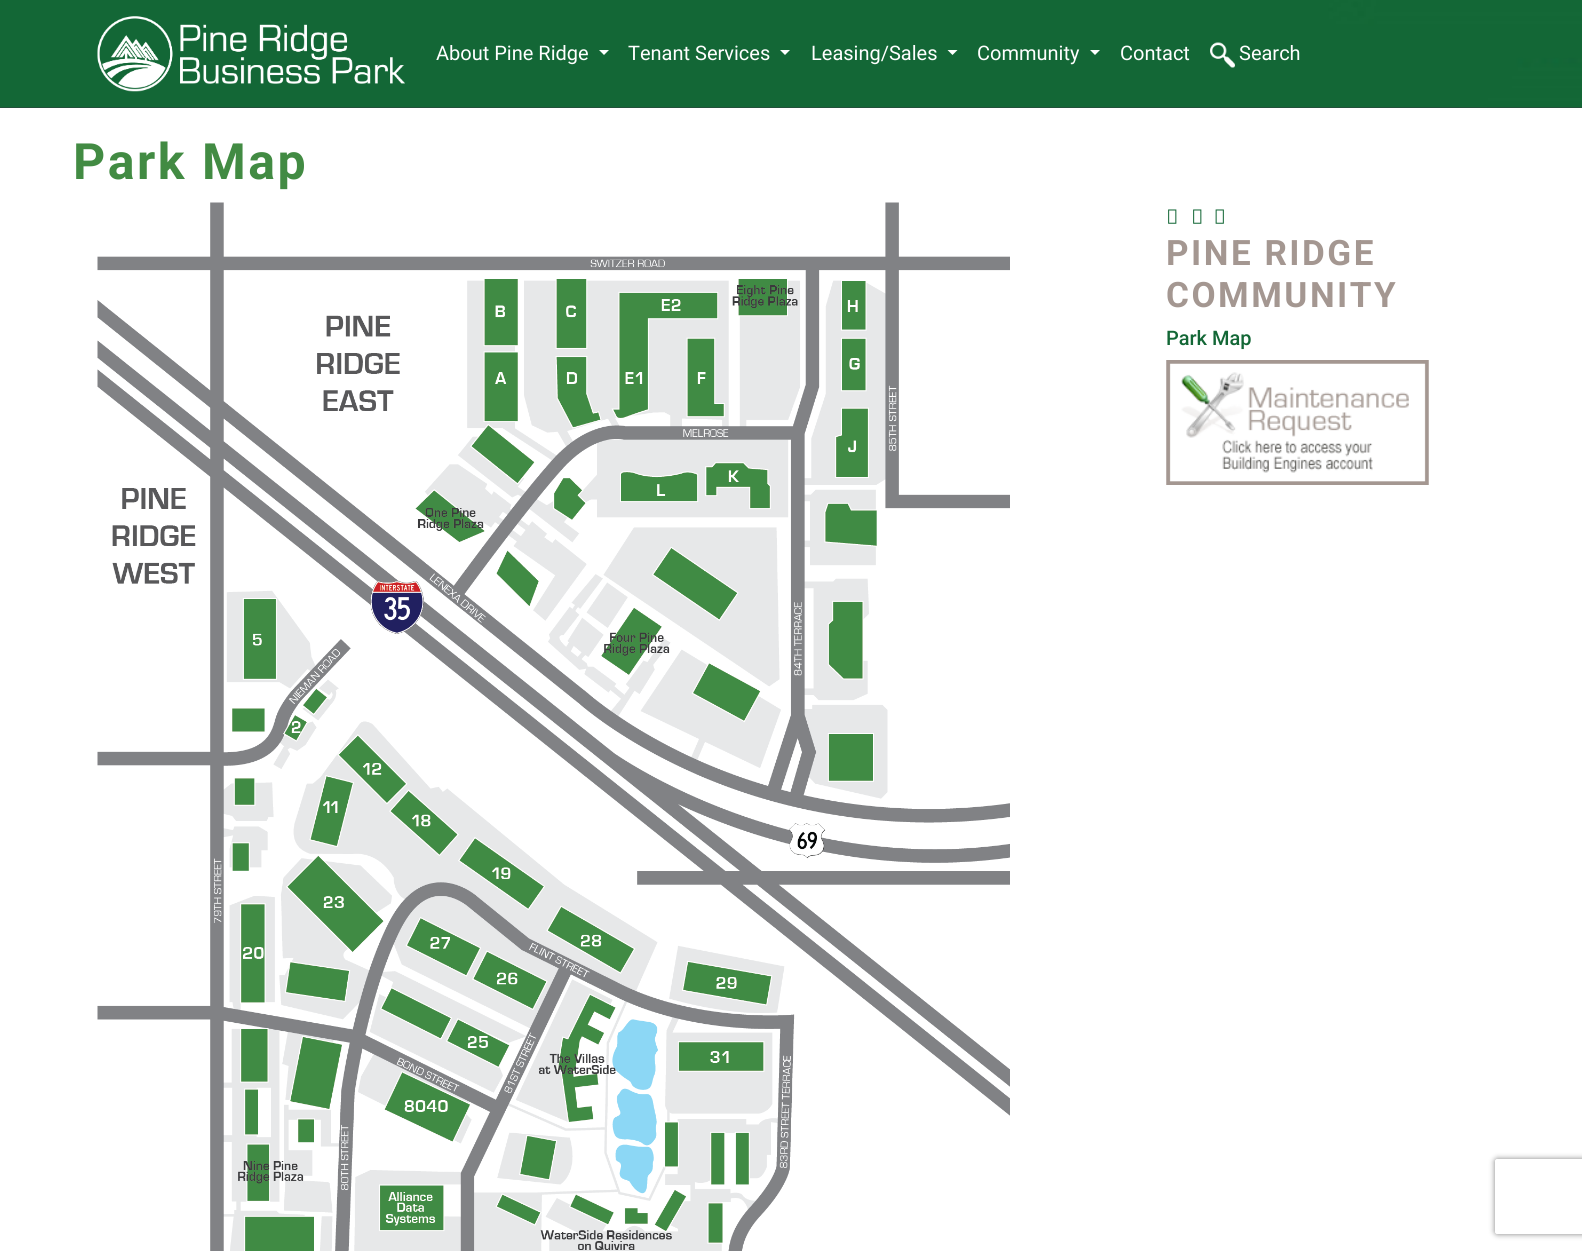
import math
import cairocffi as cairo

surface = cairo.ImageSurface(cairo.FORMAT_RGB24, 1582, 1251)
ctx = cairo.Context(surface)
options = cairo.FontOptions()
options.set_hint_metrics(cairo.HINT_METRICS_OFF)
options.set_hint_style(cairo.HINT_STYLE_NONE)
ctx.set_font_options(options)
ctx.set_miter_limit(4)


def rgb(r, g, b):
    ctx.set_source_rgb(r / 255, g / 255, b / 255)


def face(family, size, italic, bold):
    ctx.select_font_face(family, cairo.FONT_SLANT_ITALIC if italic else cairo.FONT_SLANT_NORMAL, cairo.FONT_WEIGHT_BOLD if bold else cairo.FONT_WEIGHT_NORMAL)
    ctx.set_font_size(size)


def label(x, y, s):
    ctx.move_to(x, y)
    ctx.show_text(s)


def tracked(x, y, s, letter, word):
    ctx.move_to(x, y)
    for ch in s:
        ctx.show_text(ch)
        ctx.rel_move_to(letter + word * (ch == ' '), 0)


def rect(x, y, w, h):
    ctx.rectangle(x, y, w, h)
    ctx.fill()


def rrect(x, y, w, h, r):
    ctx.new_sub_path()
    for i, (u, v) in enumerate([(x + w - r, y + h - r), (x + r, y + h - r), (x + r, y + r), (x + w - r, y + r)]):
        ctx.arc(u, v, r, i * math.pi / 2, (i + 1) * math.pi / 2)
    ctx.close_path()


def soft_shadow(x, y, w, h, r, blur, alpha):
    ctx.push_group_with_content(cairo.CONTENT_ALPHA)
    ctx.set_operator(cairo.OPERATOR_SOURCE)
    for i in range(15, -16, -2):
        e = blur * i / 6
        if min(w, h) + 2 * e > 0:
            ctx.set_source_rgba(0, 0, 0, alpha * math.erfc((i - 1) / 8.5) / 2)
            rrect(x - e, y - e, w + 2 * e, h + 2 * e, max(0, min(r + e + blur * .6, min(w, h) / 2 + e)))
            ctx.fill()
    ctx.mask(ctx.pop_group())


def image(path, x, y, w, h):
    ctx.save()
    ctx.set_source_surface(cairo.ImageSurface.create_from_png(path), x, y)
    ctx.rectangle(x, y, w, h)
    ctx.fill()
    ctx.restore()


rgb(255, 255, 255)
ctx.paint()
rgb(52, 58, 64)
rect(0, 107, 1582, 1)
image('image0.png', 0, 0, 1582, 108)
image('image1.png', 97, 16, 308, 76)
face('Roboto', 20, 0, 0)
rgb(255, 255, 255)
label(436, 60, 'About Pine Ridge')
ctx.new_path()
ctx.move_to(599, 50)
ctx.line_to(609, 50)
ctx.line_to(604, 55)
ctx.close_path()
ctx.fill()
label(628, 60, 'Tenant Services')
ctx.new_path()
ctx.move_to(780, 50)
ctx.line_to(790, 50)
ctx.line_to(785, 55)
ctx.close_path()
ctx.fill()
label(811, 60, 'Leasing/Sales')
ctx.new_path()
ctx.move_to(947.5, 50)
ctx.line_to(957.5, 50)
ctx.line_to(952.5, 55)
ctx.close_path()
ctx.fill()
label(977, 60, 'Community')
ctx.new_path()
ctx.move_to(1090, 50)
ctx.line_to(1100, 50)
ctx.line_to(1095, 55)
ctx.close_path()
ctx.fill()
label(1120, 60, 'Contact')
image('image2.png', 1210, 42, 25, 26)
label(1239, 60, 'Search')
face('Roboto', 50, 0, 1)
rgb(66, 139, 67)
tracked(73, 179, 'Park Map', 2.5, 0)
image('image3.png', 97, 202, 913, 1049)
image('image4.png', 1168, 209, 9, 15)
image('image4.png', 1193, 209, 9, 15)
image('image5.png', 1215, 209, 9, 15)
face('Roboto', 35, 0, 1)
rgb(164, 151, 145)
tracked(1166, 265, 'PINE RIDGE', 2.5, 0)
tracked(1166, 307, 'COMMUNITY', 2.5, 0)
face('Roboto Medium', 20, 0, 0)
rgb(19, 103, 54)
label(1166, 345, 'Park Map')
image('image6.png', 1166, 360, 263, 125)
ctx.save()
ctx.set_fill_rule(cairo.FILL_RULE_EVEN_ODD)
ctx.new_path()
ctx.move_to(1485, 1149)
ctx.line_to(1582, 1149)
ctx.line_to(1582, 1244)
ctx.line_to(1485, 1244)
ctx.close_path()
ctx.move_to(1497.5, 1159)
ctx.line_to(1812.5, 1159)
ctx.curve_to(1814, 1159, 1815, 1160, 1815, 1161.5)
ctx.line_to(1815, 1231.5)
ctx.curve_to(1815, 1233, 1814, 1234, 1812.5, 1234)
ctx.line_to(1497.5, 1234)
ctx.curve_to(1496, 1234, 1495, 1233, 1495, 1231.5)
ctx.line_to(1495, 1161.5)
ctx.curve_to(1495, 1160, 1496, 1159, 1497.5, 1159)
ctx.close_path()
ctx.clip()
rgb(128, 128, 128)
soft_shadow(1495, 1159, 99, 75, 2.5, 3, 1)
ctx.restore()
surface.write_to_png('render.png')
